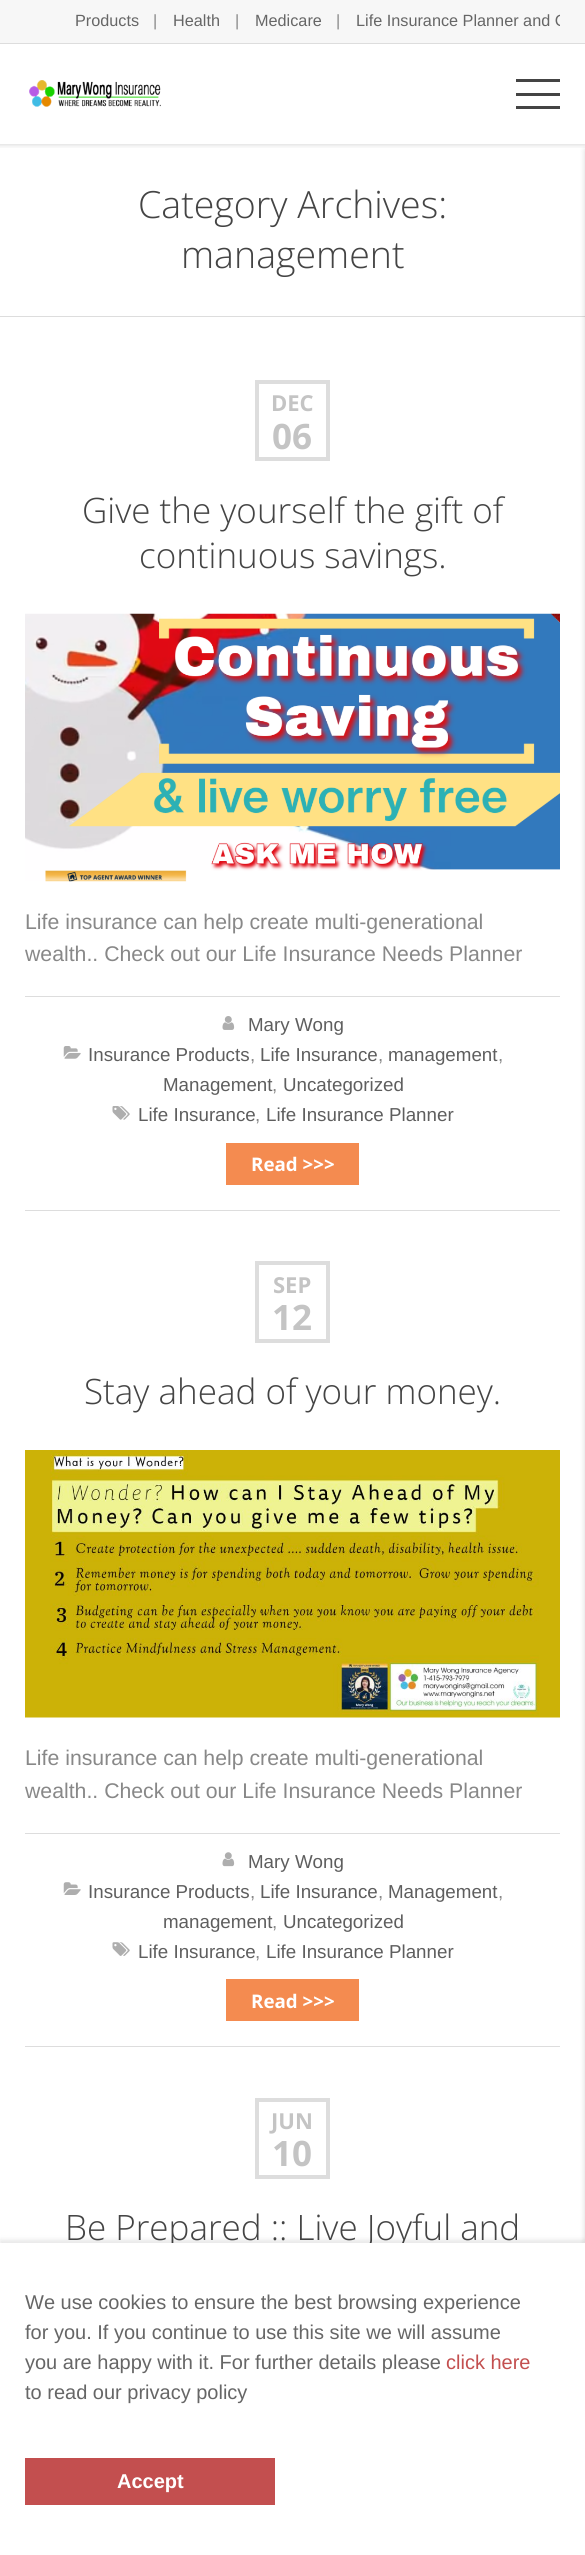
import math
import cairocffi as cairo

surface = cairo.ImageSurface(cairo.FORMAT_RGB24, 585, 2555)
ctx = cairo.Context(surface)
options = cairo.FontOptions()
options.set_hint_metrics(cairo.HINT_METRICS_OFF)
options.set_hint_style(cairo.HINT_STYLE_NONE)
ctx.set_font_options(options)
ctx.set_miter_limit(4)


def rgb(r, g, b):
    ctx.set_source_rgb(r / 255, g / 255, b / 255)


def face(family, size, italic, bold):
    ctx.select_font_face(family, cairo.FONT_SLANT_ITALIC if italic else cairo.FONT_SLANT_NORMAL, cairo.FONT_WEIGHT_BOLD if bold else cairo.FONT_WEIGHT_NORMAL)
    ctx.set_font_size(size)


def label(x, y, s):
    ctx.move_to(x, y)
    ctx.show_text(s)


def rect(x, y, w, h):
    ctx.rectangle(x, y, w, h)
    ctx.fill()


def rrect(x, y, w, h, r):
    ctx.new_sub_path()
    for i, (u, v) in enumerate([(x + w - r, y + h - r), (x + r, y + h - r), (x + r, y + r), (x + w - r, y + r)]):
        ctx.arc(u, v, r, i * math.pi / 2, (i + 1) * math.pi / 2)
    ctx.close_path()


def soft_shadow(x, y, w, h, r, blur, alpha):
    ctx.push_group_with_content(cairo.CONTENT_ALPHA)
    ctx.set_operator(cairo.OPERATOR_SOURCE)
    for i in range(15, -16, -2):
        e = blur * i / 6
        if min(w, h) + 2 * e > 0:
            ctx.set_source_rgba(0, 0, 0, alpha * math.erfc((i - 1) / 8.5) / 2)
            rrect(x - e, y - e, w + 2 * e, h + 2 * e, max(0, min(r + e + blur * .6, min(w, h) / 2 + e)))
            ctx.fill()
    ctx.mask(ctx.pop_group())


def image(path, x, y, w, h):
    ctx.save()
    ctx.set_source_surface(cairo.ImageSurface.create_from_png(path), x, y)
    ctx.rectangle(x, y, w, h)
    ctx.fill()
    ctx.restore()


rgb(255, 255, 255)
ctx.paint()
rgb(247, 247, 247)
rect(0, 0, 585, 43)
rgb(221, 221, 221)
rect(0, 43, 585, 1)
face('Liberation Sans', 16.25, 0, 0)
rgb(102, 102, 102)
label(75, 26, 'Products')
rgb(136, 136, 136)
label(153, 26, '|')
rgb(102, 102, 102)
label(173, 26, 'Health')
rgb(136, 136, 136)
label(235, 26, '|')
rgb(102, 102, 102)
label(255, 26, 'Medicare')
rgb(136, 136, 136)
label(336, 26, '|')
ctx.save()
ctx.rectangle(25, 0, 535, 43)
ctx.clip()
rgb(102, 102, 102)
label(356, 26, 'Life Insurance Planner and C')
ctx.restore()
image('image0.png', 29, 80, 132, 27)
rgb(68, 68, 68)
rect(516, 93, 44, 3)
rect(516, 79, 44, 3)
rect(516, 106, 44, 3)
image('image1.png', 0, 144, 585, 4)
rgb(221, 221, 221)
rect(0, 316, 585, 1)
rgb(0, 0, 0)
soft_shadow(585, 150, 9, 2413, 0, 3, 0.15)
face('Open Sans Light', 37.5, 0, 0)
rgb(68, 68, 68)
label(138, 218, 'Category Archives:')
label(181, 268, 'management')
ctx.rectangle(257, 382, 71, 77)
rgb(221, 221, 221)
ctx.set_line_width(4)
ctx.stroke()
face('Open Sans', 22, 0, 1)
rgb(196, 196, 196)
label(271, 411, 'DEC')
face('Open Sans', 35, 0, 1)
label(272, 449, '06')
face('Open Sans Light', 35, 0, 0)
rgb(68, 68, 68)
label(82, 523, 'Give the yourself the gift of')
label(139, 568, 'continuous savings.')
image('image2.png', 25, 613, 535, 269)
face('Liberation Sans', 21.25, 0, 0)
rgb(136, 136, 136)
label(25, 929, 'Life insurance can help create multi-generational')
label(25, 961, 'wealth.. Check out our Life Insurance Needs Planner')
rgb(221, 221, 221)
rect(25, 996, 535, 1)
rect(25, 1210, 535, 1)
image('image3.png', 222, 1016, 13, 14)
face('Liberation Sans', 18.75, 0, 0)
rgb(94, 94, 94)
label(248, 1031, 'Mary Wong')
image('image4.png', 63, 1046, 18, 13)
label(88, 1061, 'Insurance Products')
rgb(136, 136, 136)
label(250, 1061, ',')
rgb(94, 94, 94)
label(260, 1061, 'Life Insurance')
rgb(136, 136, 136)
label(378, 1061, ',')
rgb(94, 94, 94)
label(388, 1061, 'management')
rgb(136, 136, 136)
label(498, 1061, ',')
rgb(94, 94, 94)
label(163, 1091, 'Management')
rgb(136, 136, 136)
label(272, 1091, ',')
rgb(94, 94, 94)
label(283, 1091, 'Uncategorized')
image('image5.png', 112, 1106, 18, 14)
label(138, 1121, 'Life Insurance')
rgb(136, 136, 136)
label(255, 1121, ',')
rgb(94, 94, 94)
label(266, 1121, 'Life Insurance Planner')
rgb(244, 139, 80)
rect(226, 1143, 133, 42)
face('Open Sans', 18.75, 0, 1)
rgb(255, 255, 255)
label(251, 1171, 'Read >>>')
ctx.rectangle(257, 1263, 71, 78)
rgb(221, 221, 221)
ctx.stroke()
face('Open Sans', 22, 0, 1)
rgb(196, 196, 196)
label(273, 1293, 'SEP')
face('Open Sans', 35, 0, 1)
label(272, 1330, '12')
face('Open Sans Light', 35, 0, 0)
rgb(68, 68, 68)
label(84, 1404, 'Stay ahead of your money.')
image('image6.png', 25, 1450, 535, 268)
face('Liberation Sans', 21.25, 0, 0)
rgb(136, 136, 136)
label(25, 1765, 'Life insurance can help create multi-generational')
label(25, 1798, 'wealth.. Check out our Life Insurance Needs Planner')
rgb(221, 221, 221)
rect(25, 1833, 535, 1)
rect(25, 2046, 535, 1)
image('image7.png', 222, 1852, 13, 15)
face('Liberation Sans', 18.75, 0, 0)
rgb(94, 94, 94)
label(248, 1868, 'Mary Wong')
image('image8.png', 63, 1882, 18, 13)
label(88, 1898, 'Insurance Products')
rgb(136, 136, 136)
label(250, 1898, ',')
rgb(94, 94, 94)
label(260, 1898, 'Life Insurance')
rgb(136, 136, 136)
label(378, 1898, ',')
rgb(94, 94, 94)
label(388, 1898, 'Management')
rgb(136, 136, 136)
label(498, 1898, ',')
rgb(94, 94, 94)
label(163, 1928, 'management')
rgb(136, 136, 136)
label(272, 1928, ',')
rgb(94, 94, 94)
label(283, 1928, 'Uncategorized')
image('image9.png', 112, 1942, 18, 14)
label(138, 1958, 'Life Insurance')
rgb(136, 136, 136)
label(255, 1958, ',')
rgb(94, 94, 94)
label(266, 1958, 'Life Insurance Planner')
rgb(244, 139, 80)
rect(226, 1979, 133, 42)
face('Open Sans', 18.75, 0, 1)
rgb(255, 255, 255)
label(251, 2008, 'Read >>>')
ctx.rectangle(257, 2100, 71, 77)
rgb(221, 221, 221)
ctx.stroke()
face('Open Sans', 22, 0, 1)
rgb(196, 196, 196)
label(271, 2129, 'JUN')
face('Open Sans', 35, 0, 1)
label(272, 2166, '10')
face('Open Sans Light', 35, 0, 0)
rgb(68, 68, 68)
label(65, 2240, 'Be Prepared :: Live Joyful and')
rgb(0, 0, 0)
soft_shadow(0, 2240, 585, 313, 0, 2.5, 0.1)
rgb(255, 255, 255)
rect(0, 2243, 585, 312)
face('Liberation Sans', 20, 0, 0)
rgb(102, 102, 102)
label(25, 2309, 'We use cookies to ensure the best browsing experience')
label(25, 2339, 'for you. If you continue to use this site we will assume')
label(25, 2369, 'you are happy with it. For further details please')
rgb(195, 79, 79)
label(446, 2369, 'click here')
rgb(102, 102, 102)
label(25, 2399, 'to read our privacy policy')
rgb(195, 79, 79)
rect(25, 2458, 250, 47)
face('Liberation Sans', 20, 0, 1)
rgb(255, 255, 255)
label(117, 2488, 'Accept')
surface.write_to_png('render.png')
